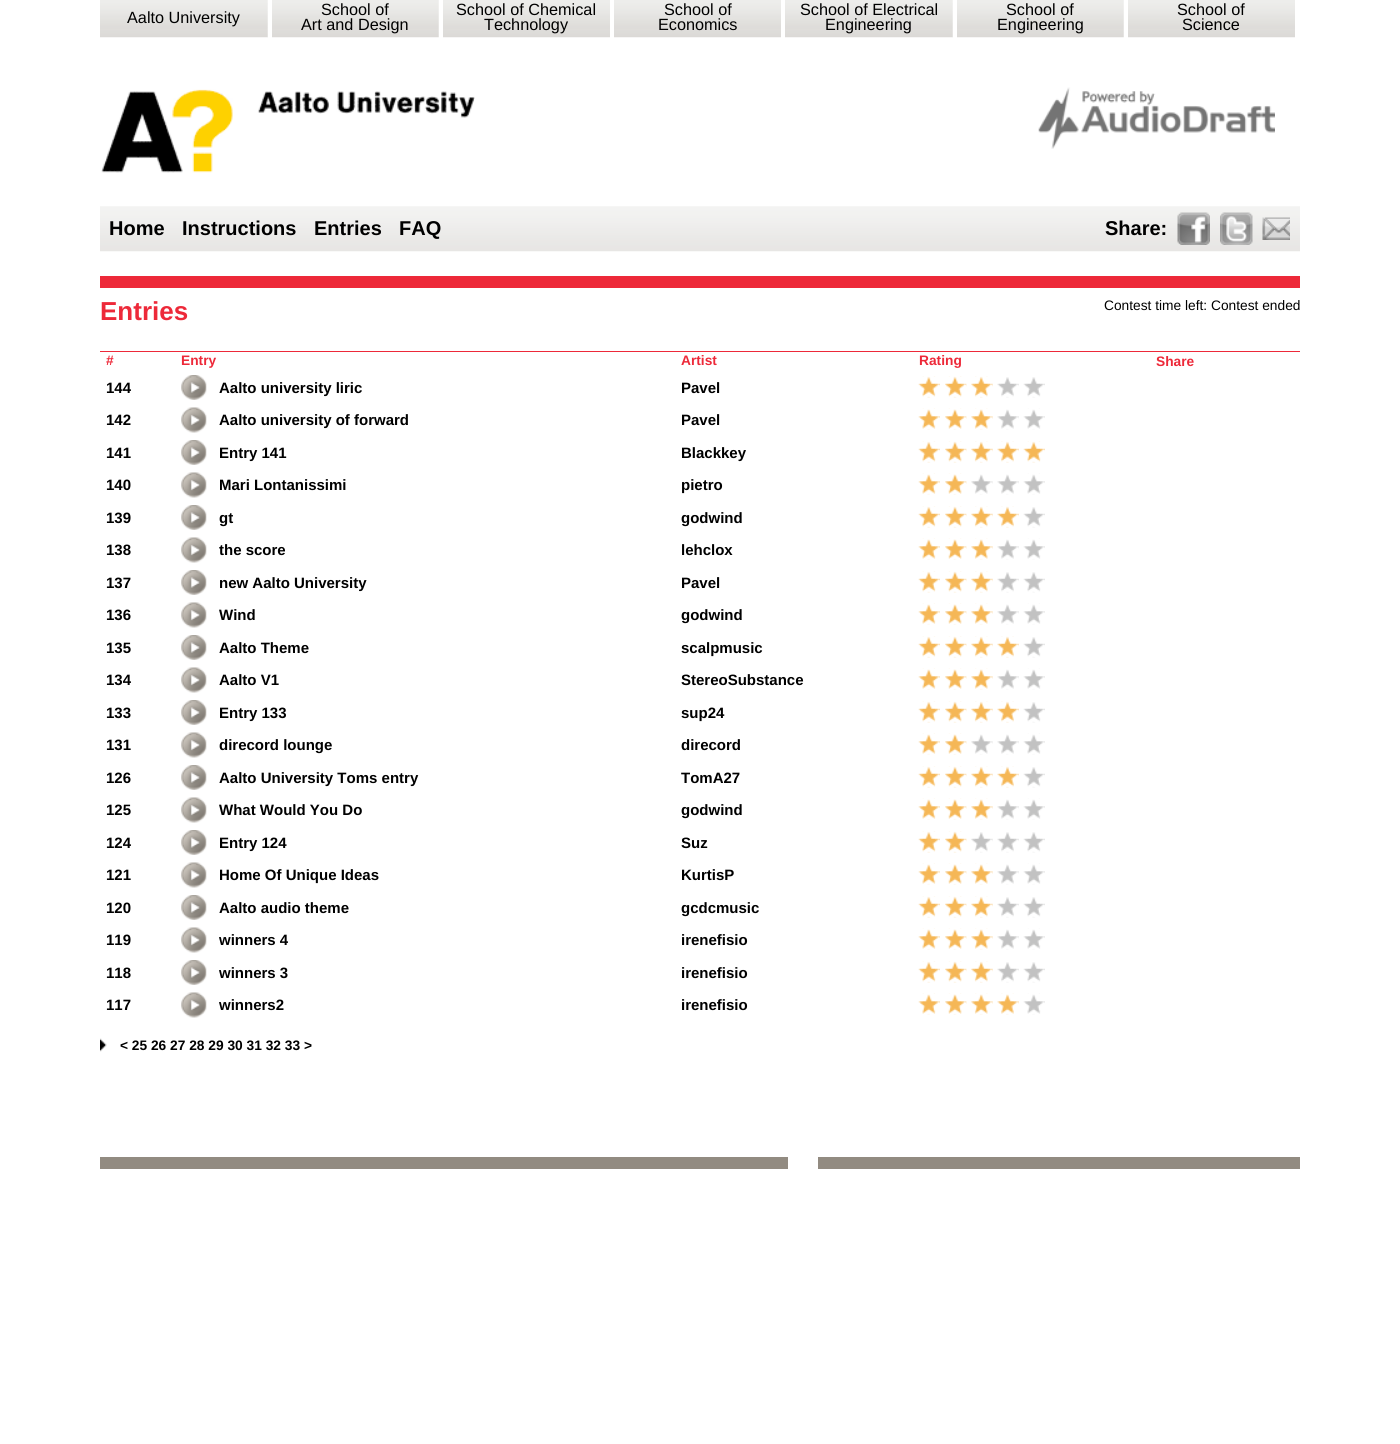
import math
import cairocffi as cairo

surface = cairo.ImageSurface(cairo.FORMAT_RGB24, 1400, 1444)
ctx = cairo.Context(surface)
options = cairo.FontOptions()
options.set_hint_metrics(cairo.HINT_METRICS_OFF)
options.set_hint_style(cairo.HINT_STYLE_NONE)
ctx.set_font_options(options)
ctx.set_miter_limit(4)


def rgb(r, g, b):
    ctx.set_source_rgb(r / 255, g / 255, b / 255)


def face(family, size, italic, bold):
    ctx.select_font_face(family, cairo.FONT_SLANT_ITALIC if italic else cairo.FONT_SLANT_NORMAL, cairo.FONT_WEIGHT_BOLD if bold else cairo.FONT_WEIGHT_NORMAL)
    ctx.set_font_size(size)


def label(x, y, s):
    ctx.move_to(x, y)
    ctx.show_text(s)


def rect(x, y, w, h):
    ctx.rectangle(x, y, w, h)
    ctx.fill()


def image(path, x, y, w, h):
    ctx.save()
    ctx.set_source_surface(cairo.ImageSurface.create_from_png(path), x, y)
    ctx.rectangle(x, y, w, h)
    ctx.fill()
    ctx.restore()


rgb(255, 255, 255)
ctx.paint()
image('image0.png', 100, 0, 168, 38)
face('Liberation Sans', 16.25, 0, 0)
rgb(0, 0, 0)
label(127, 23, 'Aalto University')
image('image1.png', 267, 0, 172, 38)
rgb(255, 255, 255)
rect(268, 0, 4, 38)
rgb(0, 0, 0)
label(321, 15, 'School of')
label(301, 30, 'Art and Design')
image('image2.png', 443, 0, 167, 38)
label(456, 15, 'School of Chemical')
label(484, 30, 'Technology')
image('image2.png', 614, 0, 167, 38)
label(664, 15, 'School of')
label(658, 30, 'Economics')
image('image0.png', 785, 0, 168, 38)
label(800, 15, 'School of Electrical')
label(825, 30, 'Engineering')
image('image1.png', 952, 0, 172, 38)
rgb(255, 255, 255)
rect(953, 0, 4, 38)
rgb(0, 0, 0)
label(1006, 15, 'School of')
label(997, 30, 'Engineering')
image('image2.png', 1128, 0, 167, 38)
label(1177, 15, 'School of')
label(1182, 30, 'Science')
image('image3.png', 101, 89, 374, 84)
image('image4.png', 1038, 87, 237, 62)
image('image5.png', 100, 206, 1200, 46)
face('Liberation Sans', 20, 0, 1)
label(109, 235, 'Home')
label(182, 235, 'Instructions')
label(314, 235, 'Entries')
label(399, 235, 'FAQ')
label(1105, 235, 'Share:')
image('image6.png', 1177, 212, 33, 33)
image('image7.png', 1220, 212, 33, 33)
image('image8.png', 1262, 217, 28, 23)
rgb(237, 41, 57)
rect(100, 276, 1200, 12)
face('Liberation Sans', 26, 0, 1)
label(100, 320, 'Entries')
face('Liberation Sans', 13.75, 0, 0)
rgb(0, 0, 0)
label(1104, 310, 'Contest time left: Contest ended')
rgb(237, 41, 57)
rect(100, 351, 1200, 1)
face('Liberation Sans', 13.75, 0, 1)
label(106, 365, '#')
label(181, 365, 'Entry')
label(681, 365, 'Artist')
label(919, 365, 'Rating')
label(1156, 366, 'Share')
face('Liberation Sans', 15, 0, 1)
rgb(0, 0, 0)
label(106, 393, '144')
image('image9.png', 181, 375, 26, 25)
label(219, 393, 'Aalto university liric')
label(681, 393, 'Pavel')
image('image10.png', 918, 376, 22, 22)
image('image11.png', 945, 376, 22, 22)
image('image12.png', 971, 376, 22, 22)
image('image13.png', 997, 377, 22, 21)
image('image14.png', 1023, 377, 22, 21)
label(106, 425, '142')
image('image15.png', 181, 407, 26, 26)
label(219, 425, 'Aalto university of forward')
label(681, 425, 'Pavel')
image('image16.png', 918, 408, 22, 22)
image('image17.png', 945, 408, 22, 22)
image('image18.png', 971, 408, 22, 22)
image('image19.png', 997, 409, 22, 21)
image('image20.png', 1023, 408, 22, 22)
label(106, 458, '141')
image('image9.png', 181, 440, 26, 25)
label(219, 458, 'Entry 141')
label(681, 458, 'Blackkey')
image('image10.png', 918, 441, 22, 22)
image('image11.png', 945, 441, 22, 22)
image('image12.png', 971, 441, 22, 22)
image('image21.png', 997, 441, 22, 22)
image('image22.png', 1023, 441, 22, 22)
label(106, 490, '140')
image('image15.png', 181, 472, 26, 26)
label(219, 490, 'Mari Lontanissimi')
label(681, 490, 'pietro')
image('image16.png', 918, 473, 22, 22)
image('image17.png', 945, 473, 22, 22)
image('image23.png', 971, 474, 22, 21)
image('image19.png', 997, 474, 22, 21)
image('image20.png', 1023, 473, 22, 22)
label(106, 523, '139')
image('image9.png', 181, 505, 26, 25)
label(219, 523, 'gt')
label(681, 523, 'godwind')
image('image10.png', 918, 506, 22, 22)
image('image11.png', 945, 506, 22, 22)
image('image12.png', 971, 506, 22, 22)
image('image21.png', 997, 506, 22, 22)
image('image14.png', 1023, 507, 22, 21)
label(106, 555, '138')
image('image15.png', 181, 537, 26, 26)
label(219, 555, 'the score')
label(681, 555, 'lehclox')
image('image16.png', 918, 538, 22, 22)
image('image17.png', 945, 538, 22, 22)
image('image18.png', 971, 538, 22, 22)
image('image19.png', 997, 539, 22, 21)
image('image20.png', 1023, 538, 22, 22)
label(106, 588, '137')
image('image24.png', 181, 570, 26, 25)
label(219, 588, 'new Aalto University')
label(681, 588, 'Pavel')
image('image25.png', 918, 571, 22, 22)
image('image26.png', 945, 571, 22, 22)
image('image27.png', 971, 571, 22, 22)
image('image28.png', 997, 572, 22, 21)
image('image29.png', 1023, 572, 22, 21)
label(106, 620, '136')
image('image15.png', 181, 602, 26, 26)
label(219, 620, 'Wind')
label(681, 620, 'godwind')
image('image16.png', 918, 603, 22, 22)
image('image17.png', 945, 603, 22, 22)
image('image18.png', 971, 603, 22, 22)
image('image19.png', 997, 604, 22, 21)
image('image20.png', 1023, 603, 22, 22)
label(106, 653, '135')
image('image9.png', 181, 635, 26, 25)
label(219, 653, 'Aalto Theme')
label(681, 653, 'scalpmusic')
image('image10.png', 918, 636, 22, 22)
image('image11.png', 945, 636, 22, 22)
image('image12.png', 971, 636, 22, 22)
image('image21.png', 997, 636, 22, 22)
image('image14.png', 1023, 637, 22, 21)
label(106, 685, '134')
image('image15.png', 181, 667, 26, 26)
label(219, 685, 'Aalto V1')
label(681, 685, 'StereoSubstance')
image('image16.png', 918, 668, 22, 22)
image('image17.png', 945, 668, 22, 22)
image('image18.png', 971, 668, 22, 22)
image('image19.png', 997, 669, 22, 21)
image('image20.png', 1023, 668, 22, 22)
label(106, 718, '133')
image('image9.png', 181, 700, 26, 25)
label(219, 718, 'Entry 133')
label(681, 718, 'sup24')
image('image10.png', 918, 701, 22, 22)
image('image11.png', 945, 701, 22, 22)
image('image12.png', 971, 701, 22, 22)
image('image21.png', 997, 701, 22, 22)
image('image14.png', 1023, 702, 22, 21)
label(106, 750, '131')
image('image15.png', 181, 732, 26, 26)
label(219, 750, 'direcord lounge')
label(681, 750, 'direcord')
image('image16.png', 918, 733, 22, 22)
image('image17.png', 945, 733, 22, 22)
image('image23.png', 971, 734, 22, 21)
image('image19.png', 997, 734, 22, 21)
image('image20.png', 1023, 733, 22, 22)
label(106, 783, '126')
image('image9.png', 181, 765, 26, 25)
label(219, 783, 'Aalto University Toms entry')
label(681, 783, 'TomA27')
image('image10.png', 918, 766, 22, 22)
image('image11.png', 945, 766, 22, 22)
image('image12.png', 971, 766, 22, 22)
image('image21.png', 997, 766, 22, 22)
image('image14.png', 1023, 767, 22, 21)
label(106, 815, '125')
image('image15.png', 181, 797, 26, 26)
label(219, 815, 'What Would You Do')
label(681, 815, 'godwind')
image('image16.png', 918, 798, 22, 22)
image('image17.png', 945, 798, 22, 22)
image('image18.png', 971, 798, 22, 22)
image('image19.png', 997, 799, 22, 21)
image('image20.png', 1023, 798, 22, 22)
label(106, 848, '124')
image('image9.png', 181, 830, 26, 25)
label(219, 848, 'Entry 124')
label(681, 848, 'Suz')
image('image10.png', 918, 831, 22, 22)
image('image11.png', 945, 831, 22, 22)
image('image30.png', 971, 832, 22, 21)
image('image13.png', 997, 832, 22, 21)
image('image14.png', 1023, 832, 22, 21)
label(106, 880, '121')
image('image15.png', 181, 862, 26, 26)
label(219, 880, 'Home Of Unique Ideas')
label(681, 880, 'KurtisP')
image('image16.png', 918, 863, 22, 22)
image('image17.png', 945, 863, 22, 22)
image('image18.png', 971, 863, 22, 22)
image('image19.png', 997, 864, 22, 21)
image('image20.png', 1023, 863, 22, 22)
label(106, 913, '120')
image('image9.png', 181, 895, 26, 25)
label(219, 913, 'Aalto audio theme')
label(681, 913, 'gcdcmusic')
image('image10.png', 918, 896, 22, 22)
image('image11.png', 945, 896, 22, 22)
image('image12.png', 971, 896, 22, 22)
image('image13.png', 997, 897, 22, 21)
image('image14.png', 1023, 897, 22, 21)
label(106, 945, '119')
image('image15.png', 181, 927, 26, 26)
label(219, 945, 'winners 4')
label(681, 945, 'irenefisio')
image('image16.png', 918, 928, 22, 22)
image('image17.png', 945, 928, 22, 22)
image('image18.png', 971, 928, 22, 22)
image('image19.png', 997, 929, 22, 21)
image('image20.png', 1023, 928, 22, 22)
label(106, 978, '118')
image('image9.png', 181, 960, 26, 25)
label(219, 978, 'winners 3')
label(681, 978, 'irenefisio')
image('image10.png', 918, 961, 22, 22)
image('image11.png', 945, 961, 22, 22)
image('image12.png', 971, 961, 22, 22)
image('image13.png', 997, 962, 22, 21)
image('image14.png', 1023, 962, 22, 21)
label(106, 1010, '117')
image('image15.png', 181, 992, 26, 26)
label(219, 1010, 'winners2')
label(681, 1010, 'irenefisio')
image('image16.png', 918, 993, 22, 22)
image('image17.png', 945, 993, 22, 22)
image('image18.png', 971, 993, 22, 22)
image('image31.png', 997, 993, 22, 22)
image('image20.png', 1023, 993, 22, 22)
image('image32.png', 100, 1038, 7, 14)
face('Liberation Sans', 13.75, 0, 1)
label(120, 1050, '< 25 26 27 28 29 30 31 32 33 >')
rgb(146, 139, 129)
rect(818, 1157, 482, 12)
rect(100, 1157, 688, 12)
surface.write_to_png('render.png')
